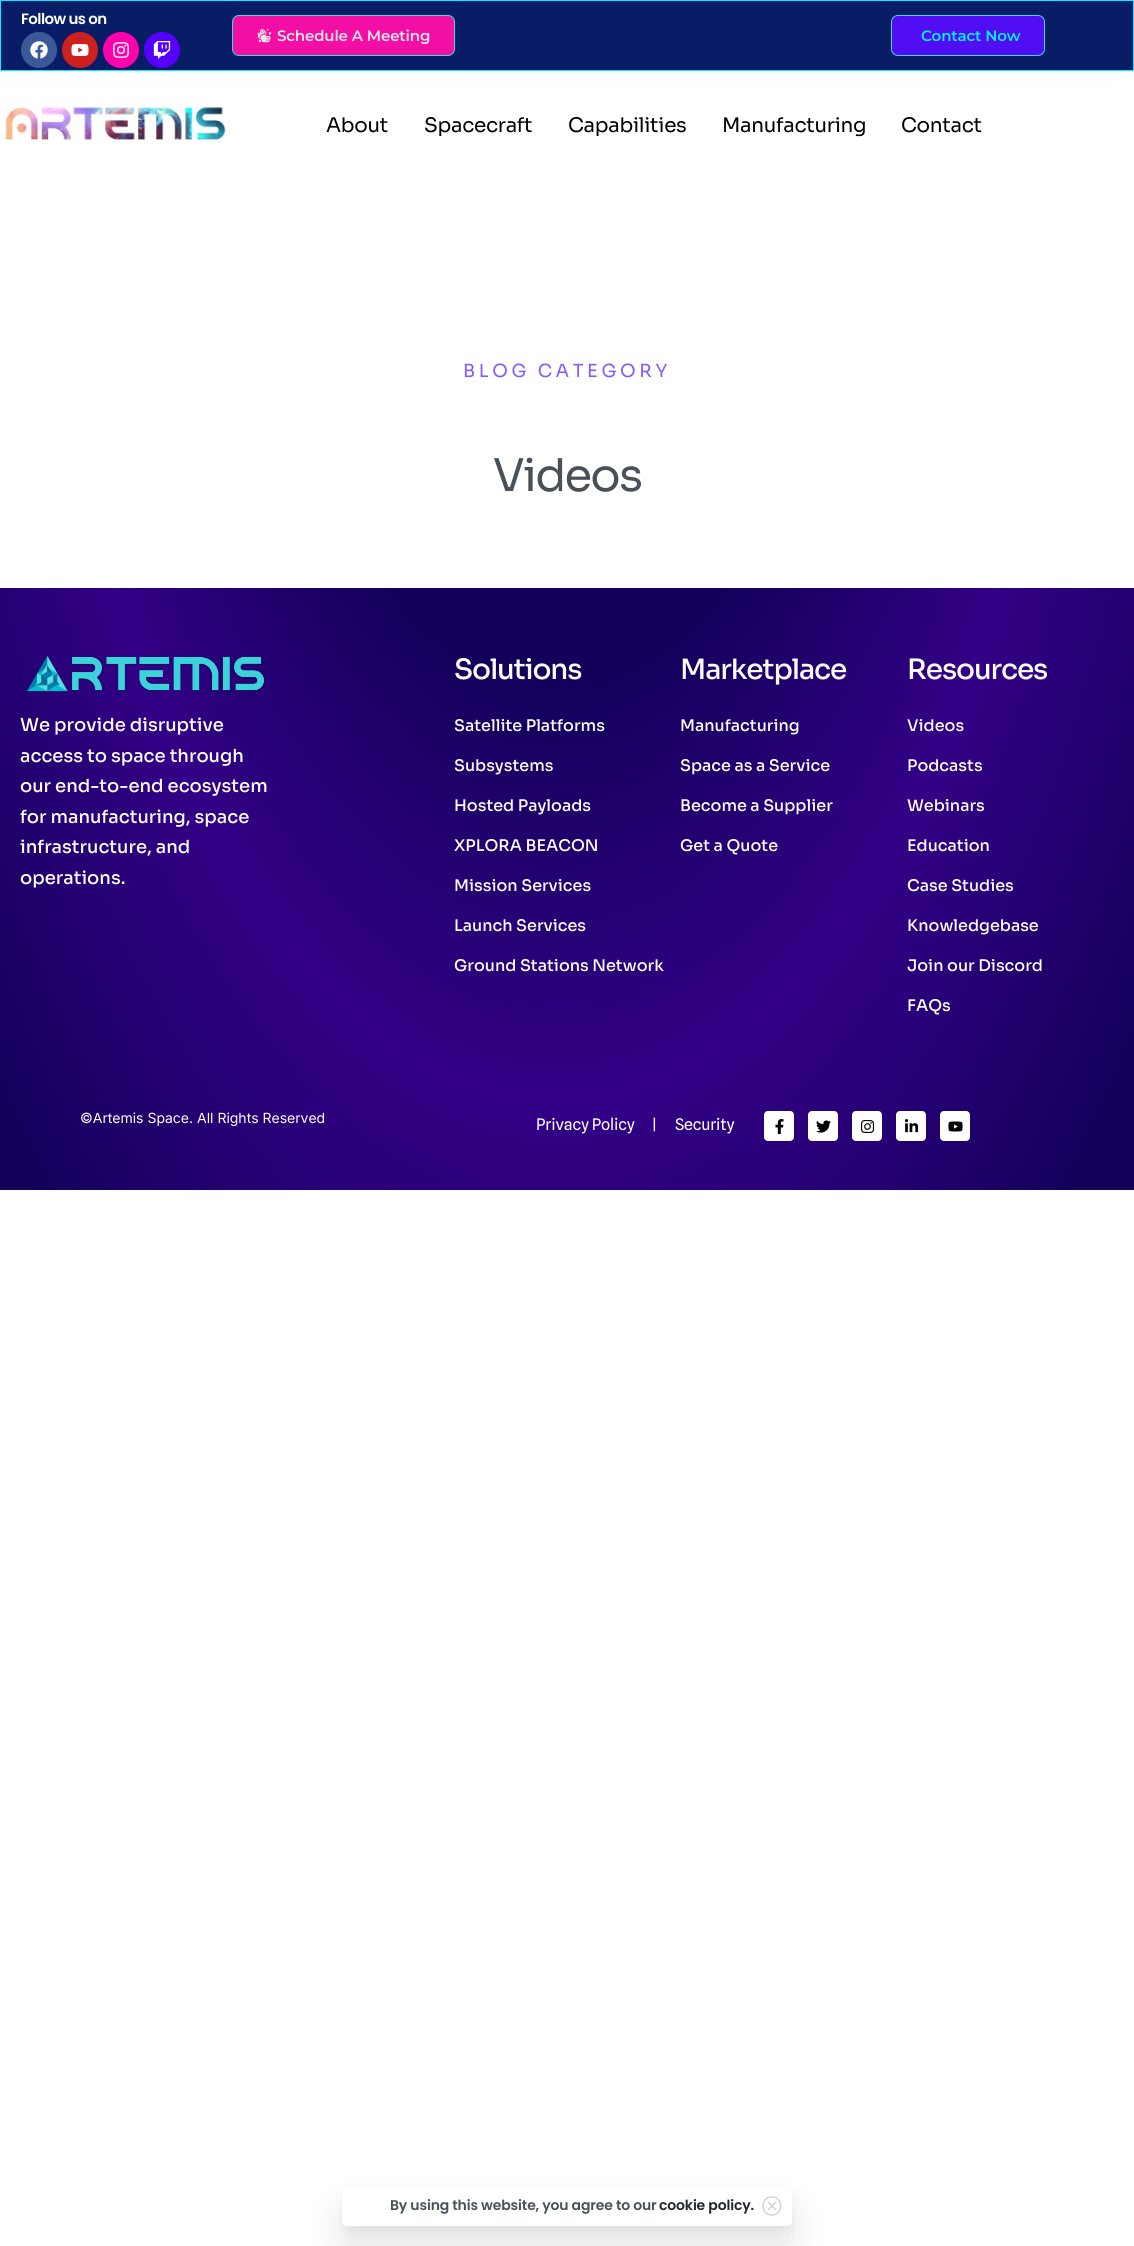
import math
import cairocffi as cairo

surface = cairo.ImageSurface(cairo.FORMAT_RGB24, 1134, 2246)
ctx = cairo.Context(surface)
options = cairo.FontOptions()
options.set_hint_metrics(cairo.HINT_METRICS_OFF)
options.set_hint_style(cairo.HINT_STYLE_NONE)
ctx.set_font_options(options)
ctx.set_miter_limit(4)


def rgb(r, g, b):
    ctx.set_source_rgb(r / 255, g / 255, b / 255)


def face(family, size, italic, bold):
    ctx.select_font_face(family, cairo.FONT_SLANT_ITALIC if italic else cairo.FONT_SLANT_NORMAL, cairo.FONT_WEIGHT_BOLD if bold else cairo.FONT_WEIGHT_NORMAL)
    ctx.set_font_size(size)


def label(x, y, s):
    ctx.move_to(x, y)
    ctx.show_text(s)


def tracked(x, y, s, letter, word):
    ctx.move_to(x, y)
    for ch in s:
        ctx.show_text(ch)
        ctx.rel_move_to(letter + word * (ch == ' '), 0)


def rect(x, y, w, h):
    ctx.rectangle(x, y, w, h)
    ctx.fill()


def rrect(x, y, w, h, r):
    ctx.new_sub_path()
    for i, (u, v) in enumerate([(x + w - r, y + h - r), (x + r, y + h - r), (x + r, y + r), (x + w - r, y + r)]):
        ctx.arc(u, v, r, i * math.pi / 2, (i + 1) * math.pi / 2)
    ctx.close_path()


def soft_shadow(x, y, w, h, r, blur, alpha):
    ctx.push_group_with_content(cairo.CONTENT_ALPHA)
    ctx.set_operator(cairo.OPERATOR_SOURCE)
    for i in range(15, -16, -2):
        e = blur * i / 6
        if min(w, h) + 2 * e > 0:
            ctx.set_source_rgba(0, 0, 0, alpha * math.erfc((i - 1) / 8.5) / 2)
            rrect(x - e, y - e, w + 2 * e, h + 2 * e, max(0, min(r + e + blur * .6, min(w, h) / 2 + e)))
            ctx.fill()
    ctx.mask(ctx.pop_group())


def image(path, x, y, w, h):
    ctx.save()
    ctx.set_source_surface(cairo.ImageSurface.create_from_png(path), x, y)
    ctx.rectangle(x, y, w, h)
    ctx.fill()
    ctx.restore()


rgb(255, 255, 255)
ctx.paint()
rgb(0, 0, 0)
soft_shadow(-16, 0, 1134, 71, 1, 5, 0.5)
rgb(8, 29, 102)
rrect(0.5, 0.5, 1133, 70, 0.5)
ctx.fill_preserve()
rgb(6, 238, 253)
ctx.set_line_width(1)
ctx.stroke()
face('Poppins SemiBold', 15, 0, 0)
rgb(255, 255, 255)
tracked(21, 24, 'Follow us on', -0.6, 0)
rgb(59, 89, 152)
ctx.new_path()
ctx.arc(39, 50, 18, 0, 2 * math.pi)
ctx.fill()
image('image0.png', 30, 41, 18, 18)
rgb(205, 32, 31)
ctx.arc(80, 50, 18, 0, 2 * math.pi)
ctx.fill()
image('image1.png', 71, 44, 18, 12)
rgb(255, 0, 173)
ctx.arc(121, 50, 18, 0, 2 * math.pi)
ctx.fill()
image('image2.png', 113, 42, 16, 16)
rgb(85, 0, 255)
ctx.arc(162, 50, 18, 0, 2 * math.pi)
ctx.fill()
image('image3.png', 153, 41, 18, 18)
rgb(243, 14, 166)
rrect(232.5, 15.5, 222, 40, 6.5)
ctx.fill_preserve()
rgb(64, 215, 225)
ctx.stroke()
image('image4.png', 257, 28, 15, 15)
face('Montserrat SemiBold', 15, 0, 0)
rgb(231, 231, 231)
tracked(277, 41, 'Schedule A Meeting', -0.15, 0)
rgb(81, 14, 243)
rrect(891.5, 15.5, 153, 40, 6.5)
ctx.fill_preserve()
rgb(64, 215, 225)
ctx.stroke()
rgb(6, 238, 253)
tracked(921, 41, 'Contact Now', -0.15, 0)
rgb(255, 255, 255)
rect(0, 71, 1127, 10)
image('image5.png', 5, 107, 221, 33)
face('Sora', 20, 0, 0)
rgb(0, 0, 0)
tracked(326, 132, 'About', -0.3, 0)
tracked(424, 132, 'Spacecraft', -0.3, 0)
tracked(568, 132, 'Capabilities', -0.3, 0)
tracked(722, 132, 'Manufacturing', -0.3, 0)
tracked(901, 132, 'Contact', -0.3, 0)
face('Sora', 18, 0, 0)
rgb(132, 90, 255)
tracked(463, 377, 'BLOG CATEGORY', 3.6, 0)
face('Sora', 45, 0, 0)
rgb(73, 80, 87)
tracked(493, 491, 'Videos', -1.75, 0)
gradient = cairo.RadialGradient(0, 0, 0, 0, 0, 1)
gradient.set_matrix(cairo.Matrix(1 / 2159, 0, 0, 1 / 4557, -1 * 557 / 2159, -1 * 0 / 4557))
gradient.add_color_stop_rgba(0.15, 0.075, 0, 0.357, 1)
gradient.add_color_stop_rgba(0.24, 0.2, 0, 0.525, 1)
gradient.add_color_stop_rgba(0.35, 0.075, 0, 0.357, 1)
gradient.add_color_stop_rgba(1, 0.075, 0, 0.357, 1)
ctx.set_source(gradient)
rect(0, 588, 1134, 602)
image('image6.png', 26, 655, 245, 38)
face('Sora Medium', 18, 0, 0)
rgb(255, 255, 255)
label(20, 731, 'We provide disruptive')
label(20, 762, 'access to space through')
label(20, 792, 'our end-to-end ecosystem')
label(20, 823, 'for manufacturing, space')
label(20, 853, 'infrastructure, and')
label(20, 884, 'operations.')
face('Sora Medium', 28, 0, 0)
tracked(454, 679, 'Solutions', -1.1, 0)
face('Sora Medium', 16, 0, 0)
label(454, 731, 'Satellite Platforms')
label(454, 771, 'Subsystems')
label(454, 811, 'Hosted Payloads')
label(454, 851, 'XPLORA BEACON')
label(454, 891, 'Mission Services')
label(454, 931, 'Launch Services')
label(454, 971, 'Ground Stations Network')
face('Sora Medium', 28, 0, 0)
tracked(680, 679, 'Marketplace', -1.1, 0)
face('Sora Medium', 16, 0, 0)
label(680, 731, 'Manufacturing')
label(680, 771, 'Space as a Service')
label(680, 811, 'Become a Supplier')
label(680, 851, 'Get a Quote')
face('Sora Medium', 28, 0, 0)
tracked(907, 679, 'Resources', -1.1, 0)
face('Sora Medium', 16, 0, 0)
label(907, 731, 'Videos')
label(907, 771, 'Podcasts')
label(907, 811, 'Webinars')
label(907, 851, 'Education')
label(907, 891, 'Case Studies')
label(907, 931, 'Knowledgebase')
label(907, 971, 'Join our Discord')
label(907, 1011, 'FAQs')
face('Inter', 14, 0, 0)
label(80, 1123, '©Artemis Space. All Rights Reserved')
face('Spline Sans', 16, 0, 0)
tracked(536, 1130, 'Privacy Policy', -0.15, 0)
tracked(652, 1130, '|', -0.15, 0)
tracked(675, 1130, 'Security', -0.15, 0)
rrect(764, 1111, 30, 30, 4)
ctx.fill()
image('image7.png', 775, 1119, 9, 15)
rrect(808, 1111, 30, 30, 4)
ctx.fill()
image('image8.png', 816, 1120, 15, 13)
rrect(852, 1111, 30, 30, 4)
ctx.fill()
image('image9.png', 861, 1120, 14, 13)
rrect(896, 1111, 30, 30, 4)
ctx.fill()
image('image10.png', 905, 1119, 14, 14)
rrect(940, 1111, 30, 30, 4)
ctx.fill()
image('image11.png', 948, 1121, 15, 11)
rgb(0, 0, 0)
soft_shadow(342, 2210, 450, 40, 5, 17.5, 0.1)
soft_shadow(342, 2190, 450, 40, 5, 4, 0.05)
rgb(255, 255, 255)
rrect(342, 2186, 450, 40, 5)
ctx.fill()
face('Poppins SemiBold', 14, 0, 0)
rgb(73, 80, 87)
tracked(390, 2210, 'By using this website, you agree to our', -0.15, 0)
rgb(33, 37, 41)
tracked(659, 2210, 'cookie policy.', -0.15, 0)
ctx.new_path()
ctx.move_to(772, 2215)
ctx.curve_to(783.5, 2215, 783.5, 2197, 772, 2197)
ctx.curve_to(760, 2197, 760, 2215, 772, 2215)
ctx.close_path()
ctx.move_to(775.5, 2202.5)
ctx.line_to(768.5, 2209.5)
ctx.move_to(768.5, 2202.5)
ctx.line_to(775.5, 2209.5)
rgb(206, 212, 218)
ctx.set_line_width(1.5)
ctx.set_line_cap(cairo.LINE_CAP_ROUND)
ctx.set_line_join(cairo.LINE_JOIN_ROUND)
ctx.stroke()
surface.write_to_png('render.png')
